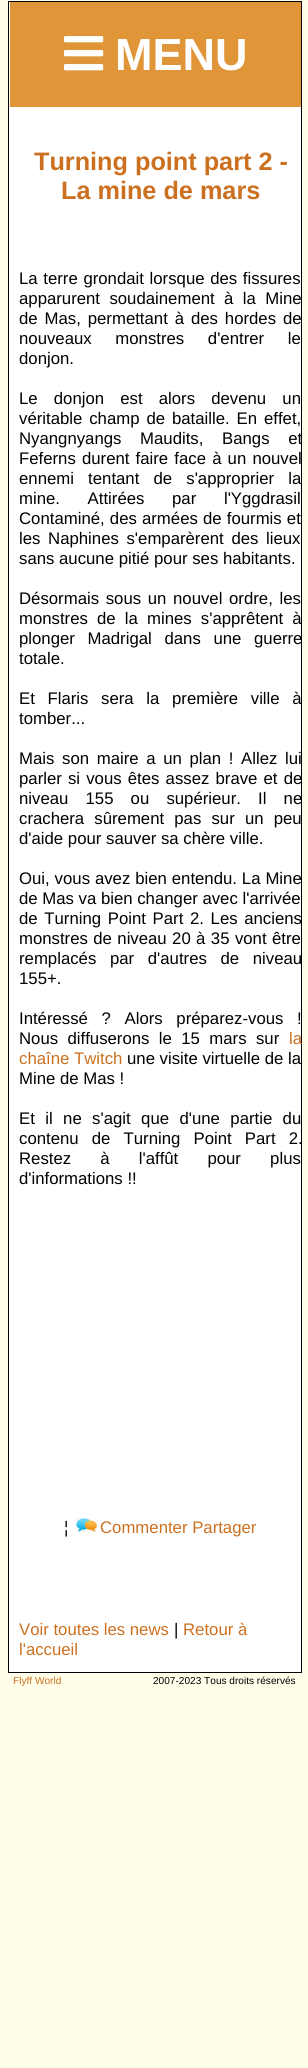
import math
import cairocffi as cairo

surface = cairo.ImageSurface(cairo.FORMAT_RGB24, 308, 2068)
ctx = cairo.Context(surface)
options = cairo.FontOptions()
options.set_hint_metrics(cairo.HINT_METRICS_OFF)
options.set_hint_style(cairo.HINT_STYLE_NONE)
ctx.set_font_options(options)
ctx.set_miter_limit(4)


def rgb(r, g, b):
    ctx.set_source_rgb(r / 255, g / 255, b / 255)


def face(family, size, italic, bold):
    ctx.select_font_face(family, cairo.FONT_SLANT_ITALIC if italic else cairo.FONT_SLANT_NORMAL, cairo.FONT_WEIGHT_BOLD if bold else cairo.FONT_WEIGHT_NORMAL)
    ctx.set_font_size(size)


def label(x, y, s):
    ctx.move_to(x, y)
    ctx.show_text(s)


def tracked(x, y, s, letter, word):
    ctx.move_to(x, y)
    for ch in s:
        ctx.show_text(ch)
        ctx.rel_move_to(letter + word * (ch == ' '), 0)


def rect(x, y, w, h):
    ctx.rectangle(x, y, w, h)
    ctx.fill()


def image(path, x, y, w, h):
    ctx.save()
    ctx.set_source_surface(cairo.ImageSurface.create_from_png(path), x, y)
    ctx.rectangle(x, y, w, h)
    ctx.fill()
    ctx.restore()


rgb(255, 254, 233)
ctx.paint()
rgb(255, 255, 255)
ctx.rectangle(8.5, 1.5, 293, 1671)
ctx.fill_preserve()
rgb(0, 0, 0)
ctx.set_line_width(1)
ctx.stroke()
rgb(223, 149, 56)
rect(10, 2, 291, 105)
image('image0.png', 64, 36, 40, 35)
face('Liberation Sans', 45, 0, 1)
rgb(255, 255, 255)
label(115, 70, 'MENU')
face('Liberation Sans', 25.25, 0, 1)
rgb(204, 112, 31)
label(34, 170, 'Turning point part 2 -')
label(61, 199, 'La mine de mars')
face('Liberation Sans', 16.75, 0, 0)
rgb(0, 0, 0)
tracked(19, 284, 'La terre grondait lorsque des fissures', 0, 1)
tracked(19, 304, 'apparurent soudainement à la Mine', 0, 4.75)
tracked(19, 324, 'de Mas, permettant à des hordes de', 0, 2.25)
tracked(19, 344, 'nouveaux monstres d\'entrer le', 0, 19)
label(19, 364, 'donjon.')
tracked(19, 404, 'Le donjon est alors devenu un', 0, 11.5)
tracked(19, 424, 'véritable champ de bataille. En effet,', 0, 2.25)
tracked(19, 444, 'Nyangnyangs Maudits, Bangs et', 0, 14)
tracked(19, 464, 'Feferns durent faire face à un nouvel', 0, 1.5)
tracked(19, 484, 'ennemi tentant de s\'approprier la', 0, 9.5)
tracked(19, 504, 'mine. Attirées par l\'Yggdrasil', 0, 23)
tracked(19, 524, 'Contaminé, des armées de fourmis et', 0, 0.5)
tracked(19, 544, 'les Naphines s\'emparèrent des lieux', 0, 3)
label(19, 564, 'sans aucune pitié pour ses habitants.')
tracked(19, 604, 'Désormais sous un nouvel ordre, les', 0, 2)
tracked(19, 624, 'monstres de la mines s\'apprêtent à', 0, 4.5)
tracked(19, 644, 'plonger Madrigal dans une guerre', 0, 8)
label(19, 664, 'totale.')
tracked(19, 704, 'Et Flaris sera la première ville à', 0, 8)
label(19, 724, 'tomber...')
tracked(19, 764, 'Mais son maire a un plan ! Allez lui', 0, 3)
tracked(19, 784, 'parler si vous êtes assez brave et de', 0, 1.5)
tracked(19, 804, 'niveau 155 ou supérieur. Il ne', 0, 12.5)
tracked(19, 824, 'crachera sûrement pas sur un peu', 0, 5.5)
label(19, 844, 'd\'aide pour sauver sa chère ville.')
tracked(19, 884, 'Oui, vous avez bien entendu. La Mine', 0, 0.25)
label(19, 904, 'de Mas va bien changer avec l\'arrivée')
tracked(19, 924, 'de Turning Point Part 2. Les anciens', 0, 2)
tracked(19, 944, 'monstres de niveau 20 à 35 vont être', 0, 0.75)
tracked(19, 964, 'remplacés par d\'autres de niveau', 0, 9)
label(19, 984, '155+.')
tracked(19, 1024, 'Intéressé ? Alors préparez-vous !', 0, 9)
tracked(19, 1044, 'Nous diffuserons le 15 mars sur', 0, 4.75)
rgb(204, 112, 31)
label(289, 1044, 'la')
label(19, 1064, 'chaîne Twitch')
rgb(0, 0, 0)
label(127, 1064, 'une visite virtuelle de la')
label(19, 1084, 'Mine de Mas !')
tracked(19, 1124, 'Et il ne s\'agit que d\'une partie du', 0, 5.75)
tracked(19, 1144, 'contenu de Turning Point Part 2.', 0, 8.5)
tracked(19, 1164, 'Restez à l\'affût pour plus', 0, 24.5)
label(19, 1184, 'd\'informations !!')
label(64, 1533, '¦')
image('image1.png', 76, 1518, 21, 16)
rgb(204, 112, 31)
label(100, 1533, 'Commenter Partager')
label(19, 1635, 'Voir toutes les news')
rgb(0, 0, 0)
label(174, 1635, '|')
rgb(204, 112, 31)
label(183, 1635, 'Retour à')
label(19, 1655, 'l\'accueil')
face('Liberation Sans', 10.1, 0, 0)
label(13, 1684, 'Flyff World')
rgb(0, 0, 0)
label(153, 1684, '2007-2023 Tous droits réservés')
surface.write_to_png('render.png')
